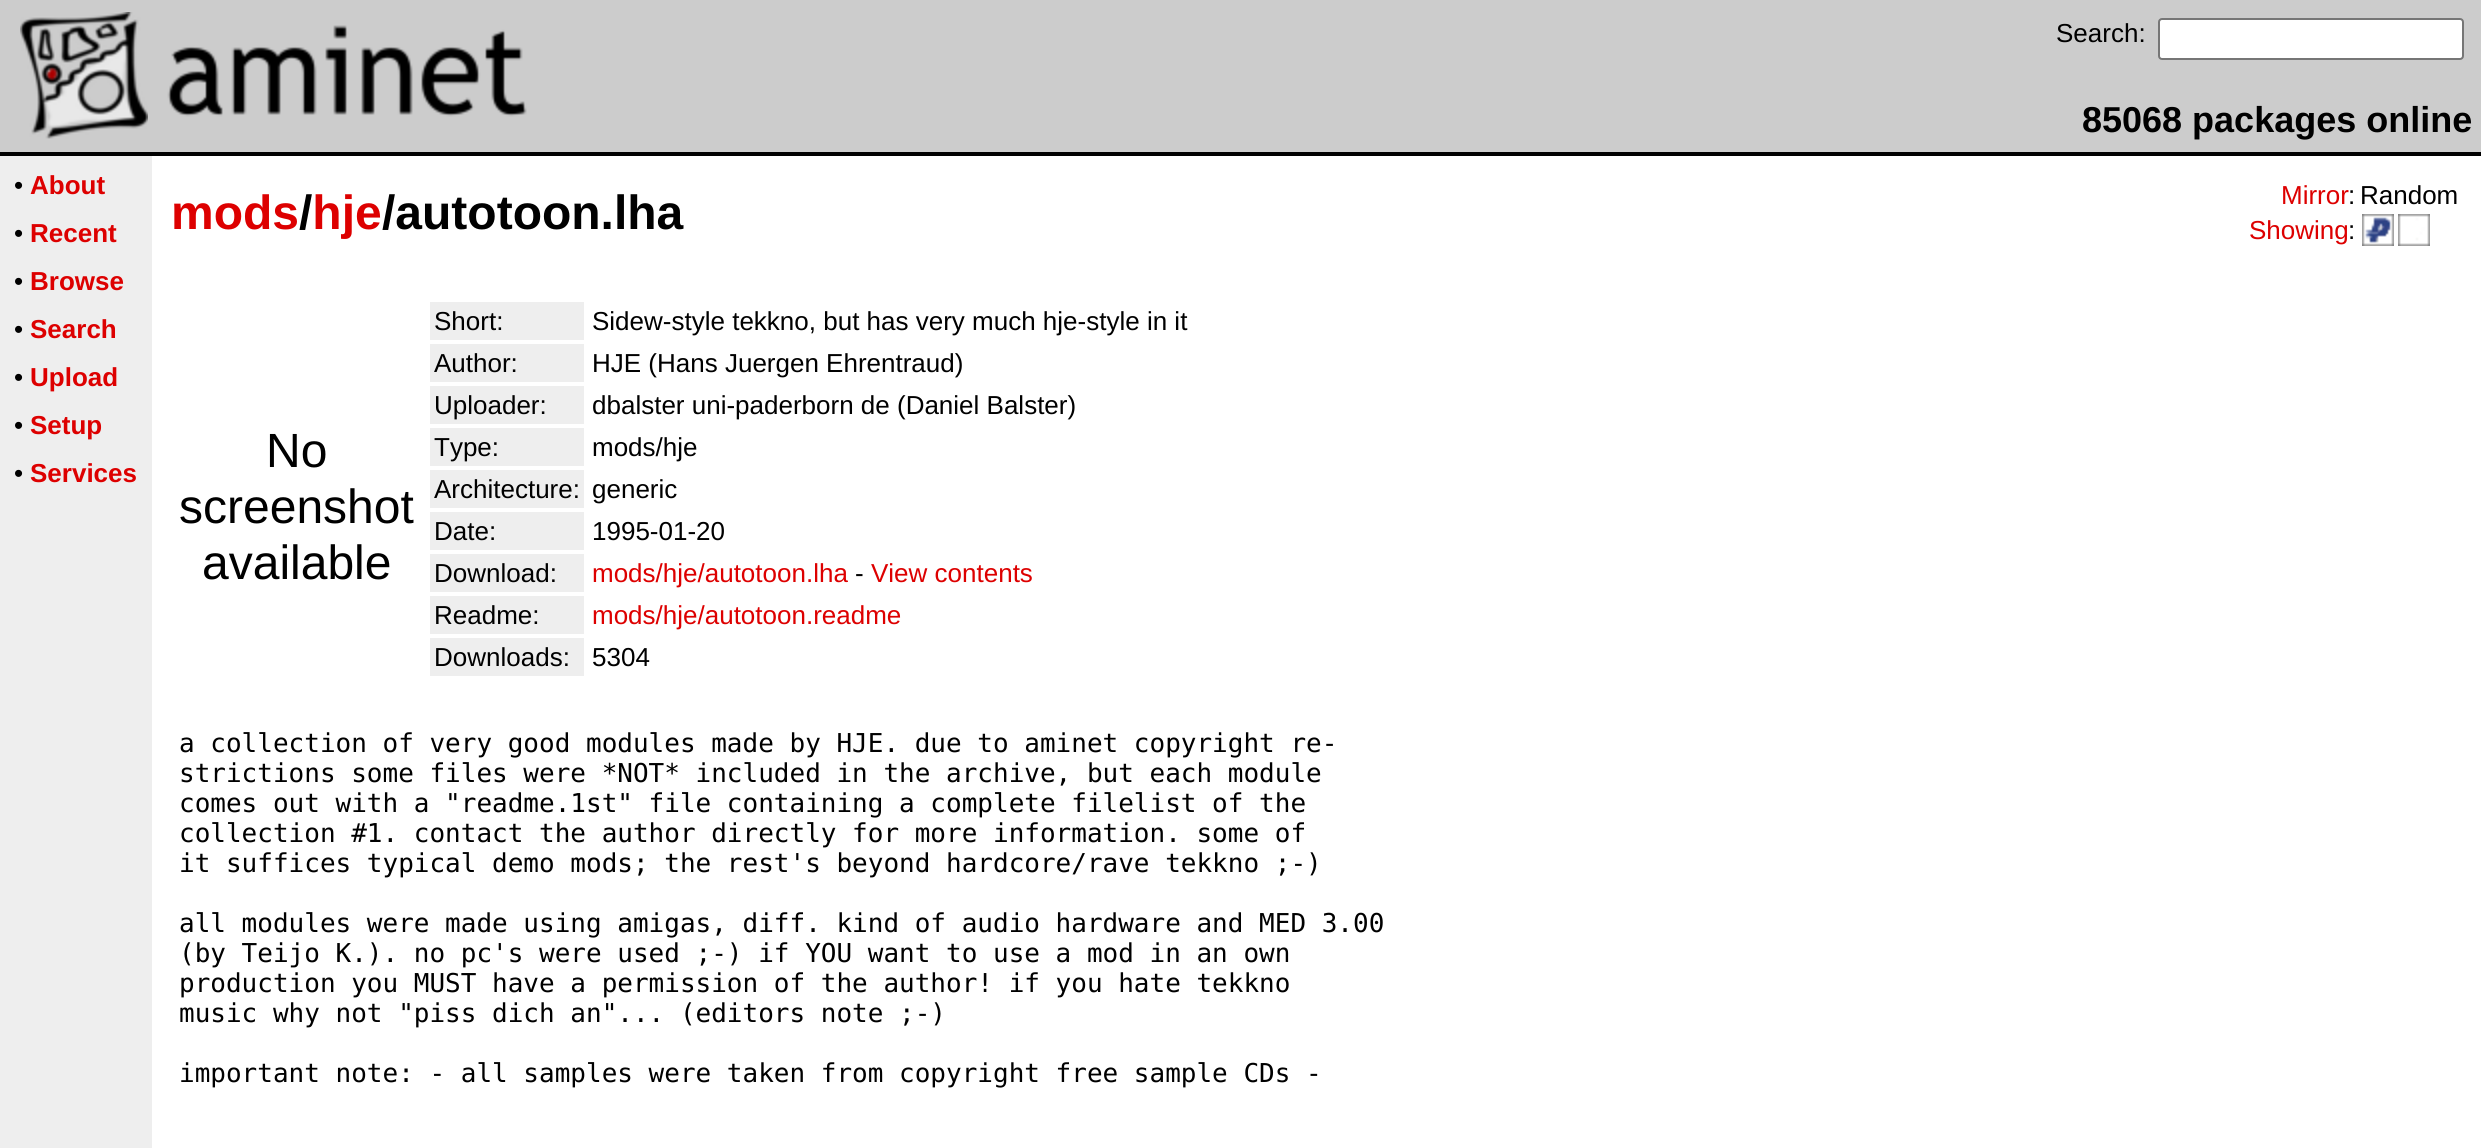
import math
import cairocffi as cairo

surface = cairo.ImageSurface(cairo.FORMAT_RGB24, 2481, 1148)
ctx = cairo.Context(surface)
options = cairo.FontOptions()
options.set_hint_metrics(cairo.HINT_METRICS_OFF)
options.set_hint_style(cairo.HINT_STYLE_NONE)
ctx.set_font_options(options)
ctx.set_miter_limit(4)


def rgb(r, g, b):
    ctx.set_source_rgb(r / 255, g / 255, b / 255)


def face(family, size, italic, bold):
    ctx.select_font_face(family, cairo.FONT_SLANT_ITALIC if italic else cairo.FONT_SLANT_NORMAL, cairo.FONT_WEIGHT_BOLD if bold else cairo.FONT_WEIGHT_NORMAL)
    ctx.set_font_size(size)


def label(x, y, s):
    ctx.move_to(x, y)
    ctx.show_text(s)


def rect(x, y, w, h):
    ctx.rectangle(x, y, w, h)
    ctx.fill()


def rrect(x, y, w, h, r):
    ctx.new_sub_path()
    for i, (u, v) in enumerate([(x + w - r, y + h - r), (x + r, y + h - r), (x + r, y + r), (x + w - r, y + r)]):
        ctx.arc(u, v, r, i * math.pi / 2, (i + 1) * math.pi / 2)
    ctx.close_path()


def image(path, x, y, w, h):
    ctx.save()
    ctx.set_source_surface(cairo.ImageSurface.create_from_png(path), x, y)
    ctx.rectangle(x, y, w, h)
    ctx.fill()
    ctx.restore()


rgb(255, 255, 255)
ctx.paint()
rgb(204, 204, 204)
rect(0, 0, 2481, 152)
image('image0.png', 20, 12, 128, 127)
image('image1.png', 167, 25, 360, 92)
face('Liberation Sans', 26, 0, 0)
rgb(0, 0, 0)
label(2056, 42, 'Search:')
rgb(255, 255, 255)
rrect(2159, 19, 304, 40, 3)
ctx.fill_preserve()
rgb(118, 118, 118)
ctx.stroke()
face('Liberation Sans', 36, 0, 1)
rgb(0, 0, 0)
label(2082, 132, '85068 packages online')
rect(0, 152, 2481, 4)
rgb(238, 238, 238)
rect(0, 156, 152, 992)
face('Liberation Sans', 26, 0, 0)
rgb(0, 0, 0)
label(14, 194, '•')
face('Liberation Sans', 26, 0, 1)
rgb(221, 0, 0)
label(30, 194, 'About')
face('Liberation Sans', 26, 0, 0)
rgb(0, 0, 0)
label(14, 242, '•')
face('Liberation Sans', 26, 0, 1)
rgb(221, 0, 0)
label(30, 242, 'Recent')
face('Liberation Sans', 26, 0, 0)
rgb(0, 0, 0)
label(14, 290, '•')
face('Liberation Sans', 26, 0, 1)
rgb(221, 0, 0)
label(30, 290, 'Browse')
face('Liberation Sans', 26, 0, 0)
rgb(0, 0, 0)
label(14, 338, '•')
face('Liberation Sans', 26, 0, 1)
rgb(221, 0, 0)
label(30, 338, 'Search')
face('Liberation Sans', 26, 0, 0)
rgb(0, 0, 0)
label(14, 386, '•')
face('Liberation Sans', 26, 0, 1)
rgb(221, 0, 0)
label(30, 386, 'Upload')
face('Liberation Sans', 26, 0, 0)
rgb(0, 0, 0)
label(14, 434, '•')
face('Liberation Sans', 26, 0, 1)
rgb(221, 0, 0)
label(30, 434, 'Setup')
face('Liberation Sans', 26, 0, 0)
rgb(0, 0, 0)
label(14, 482, '•')
face('Liberation Sans', 26, 0, 1)
rgb(221, 0, 0)
label(30, 482, 'Services')
face('Liberation Sans', 48, 0, 1)
label(171, 229, 'mods hje')
rgb(0, 0, 0)
label(299, 229, '/')
label(382, 229, '/autotoon.lha')
face('Liberation Sans', 26, 0, 0)
rgb(221, 0, 0)
label(2281, 204, 'Mirror')
rgb(0, 0, 0)
label(2348, 204, ':')
label(2360, 204, 'Random')
rgb(221, 0, 0)
label(2249, 239, 'Showing')
rgb(0, 0, 0)
label(2348, 239, ':')
image('image2.png', 2362, 214, 32, 32)
image('image3.png', 2398, 214, 32, 32)
face('Liberation Sans', 48, 0, 0)
label(266, 467, 'No')
label(179, 523, 'screenshot')
label(202, 579, 'available')
rgb(238, 238, 238)
rect(430, 302, 154, 38)
face('Liberation Sans', 26, 0, 0)
rgb(0, 0, 0)
label(434, 330, 'Short:')
label(592, 330, 'Sidew-style tekkno, but has very much hje-style in it')
rgb(238, 238, 238)
rect(430, 344, 154, 38)
rgb(0, 0, 0)
label(434, 372, 'Author:')
label(592, 372, 'HJE (Hans Juergen Ehrentraud)')
rgb(238, 238, 238)
rect(430, 386, 154, 38)
rgb(0, 0, 0)
label(434, 414, 'Uploader:')
label(592, 414, 'dbalster uni-paderborn de (Daniel Balster)')
rgb(238, 238, 238)
rect(430, 428, 154, 38)
rgb(0, 0, 0)
label(434, 456, 'Type:')
label(592, 456, 'mods/hje')
rgb(238, 238, 238)
rect(430, 470, 154, 38)
rgb(0, 0, 0)
label(434, 498, 'Architecture:')
label(592, 498, 'generic')
rgb(238, 238, 238)
rect(430, 512, 154, 38)
rgb(0, 0, 0)
label(434, 540, 'Date:')
label(592, 540, '1995-01-20')
rgb(238, 238, 238)
rect(430, 554, 154, 38)
rgb(0, 0, 0)
label(434, 582, 'Download:')
rgb(221, 0, 0)
label(592, 582, 'mods/hje/autotoon.lha')
rgb(0, 0, 0)
label(855, 582, '-')
rgb(221, 0, 0)
label(871, 582, 'View contents')
rgb(238, 238, 238)
rect(430, 596, 154, 38)
rgb(0, 0, 0)
label(434, 624, 'Readme:')
rgb(221, 0, 0)
label(592, 624, 'mods/hje/autotoon.readme')
rgb(238, 238, 238)
rect(430, 638, 154, 38)
rgb(0, 0, 0)
label(434, 666, 'Downloads:')
label(592, 666, '5304')
face('DejaVu Sans Mono', 26, 0, 0)
label(179, 752, 'a collection of very good modules made by HJE. due to aminet copyright re-')
label(179, 782, 'strictions some files were *NOT* included in the archive, but each module')
label(179, 812, 'comes out with a "readme.1st" file containing a complete filelist of the')
label(179, 842, 'collection #1. contact the author directly for more information. some of')
label(179, 872, 'it suffices typical demo mods; the rest\'s beyond hardcore/rave tekkno ;-)')
label(179, 932, 'all modules were made using amigas, diff. kind of audio hardware and MED 3.00')
label(179, 962, '(by Teijo K.). no pc\'s were used ;-) if YOU want to use a mod in an own')
label(179, 992, 'production you MUST have a permission of the author! if you hate tekkno')
label(179, 1022, 'music why not "piss dich an"... (editors note ;-)')
label(179, 1082, 'important note: - all samples were taken from copyright free sample CDs -')
surface.write_to_png('render.png')
